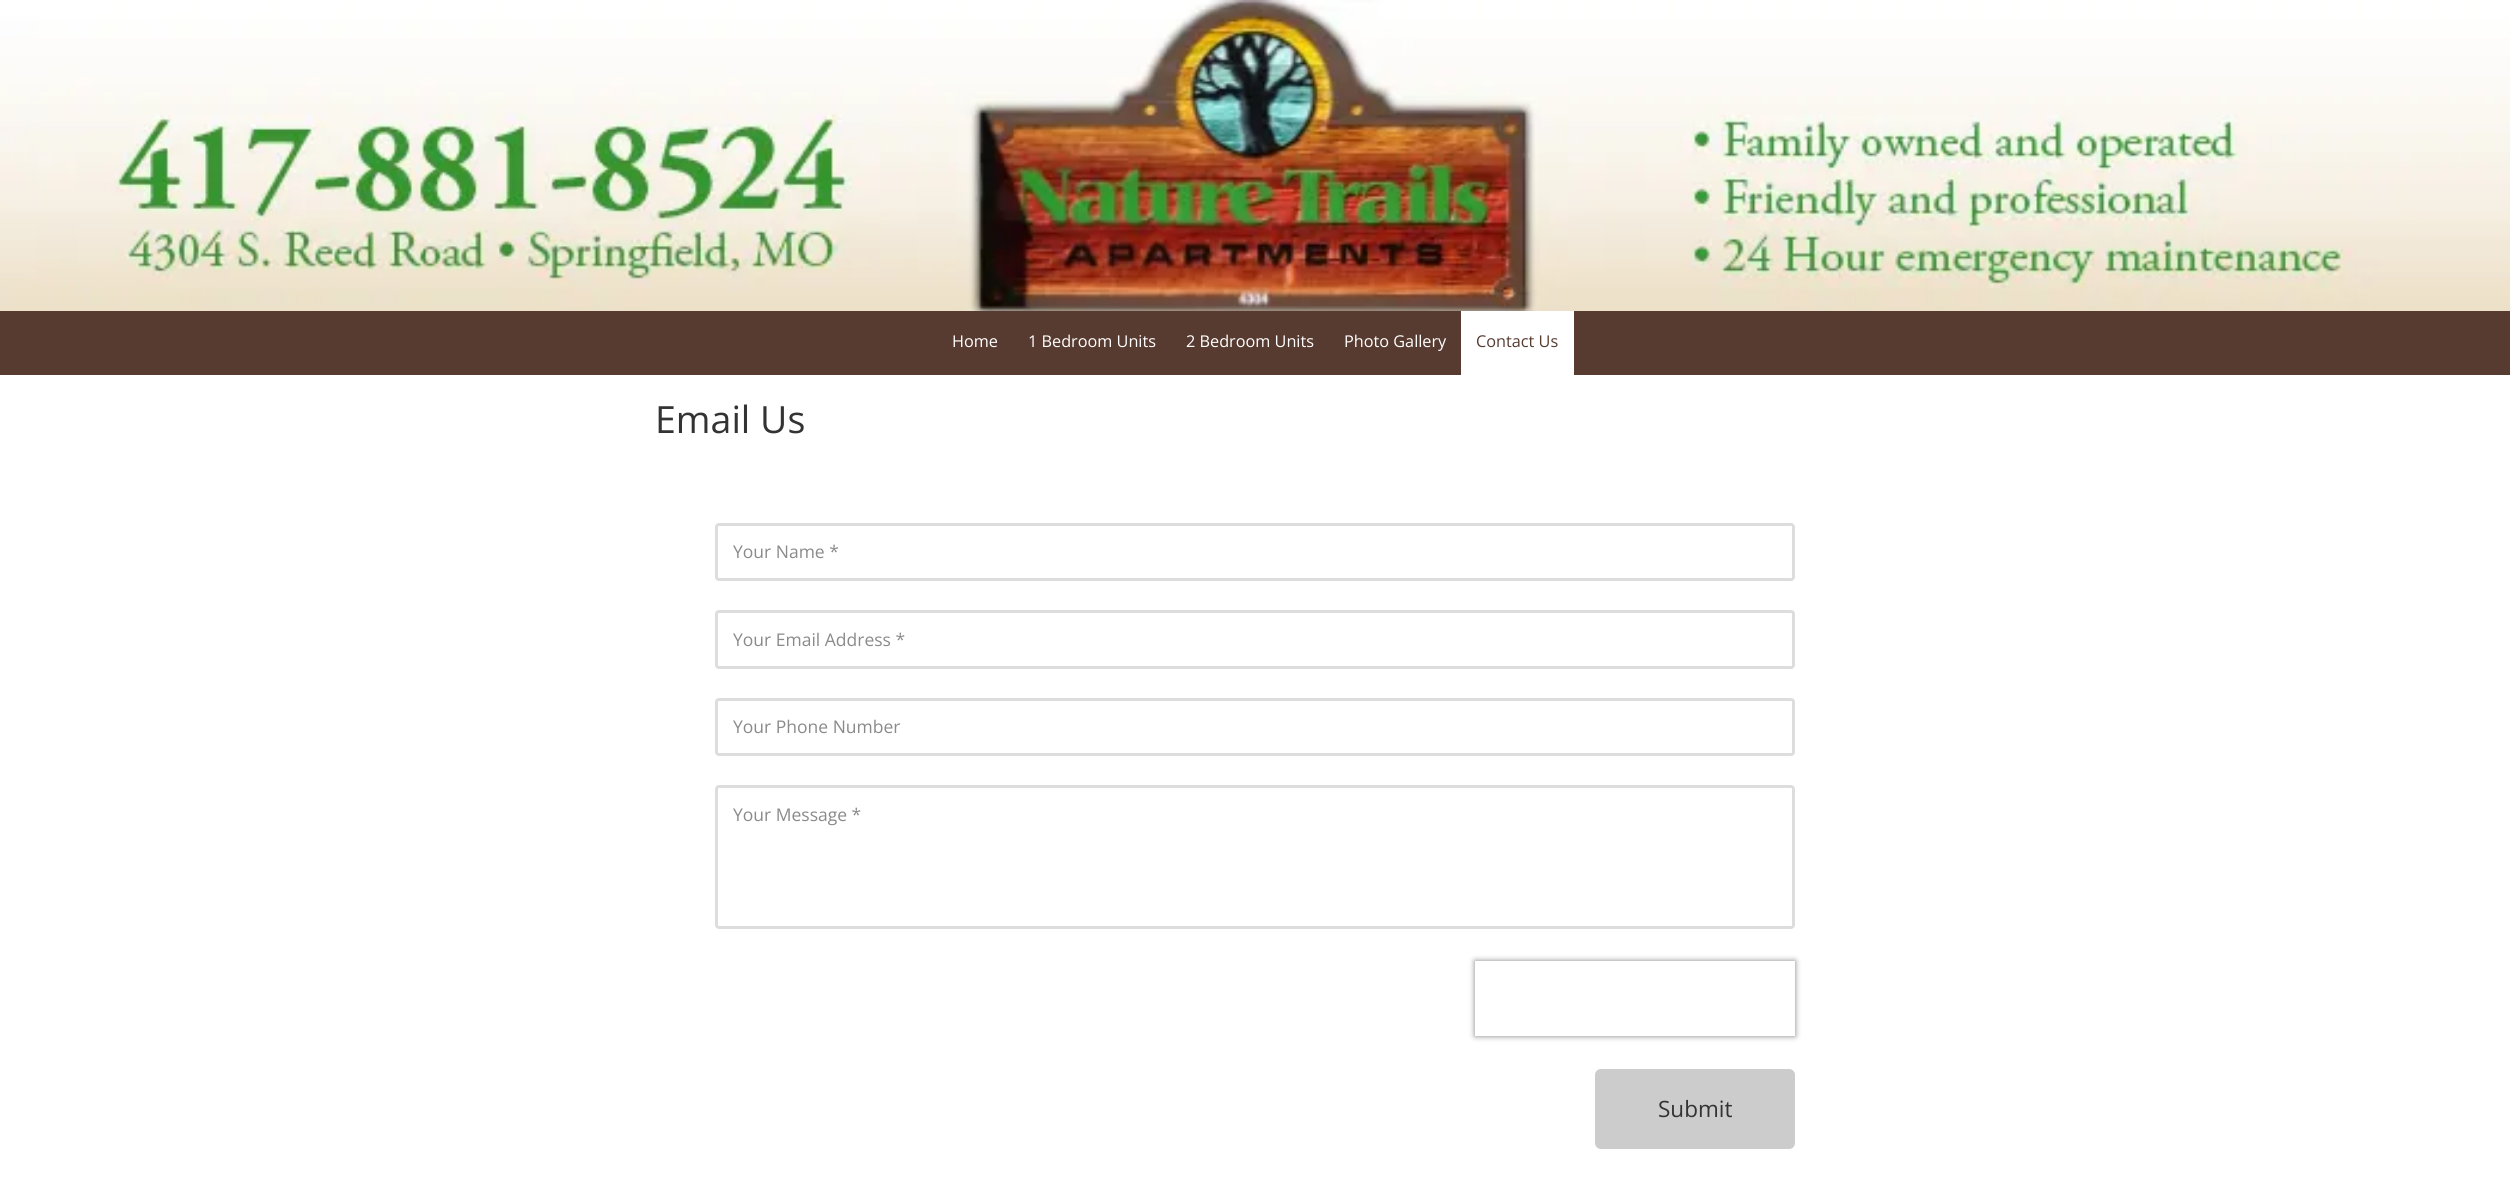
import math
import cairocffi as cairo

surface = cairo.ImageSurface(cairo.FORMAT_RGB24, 2510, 1184)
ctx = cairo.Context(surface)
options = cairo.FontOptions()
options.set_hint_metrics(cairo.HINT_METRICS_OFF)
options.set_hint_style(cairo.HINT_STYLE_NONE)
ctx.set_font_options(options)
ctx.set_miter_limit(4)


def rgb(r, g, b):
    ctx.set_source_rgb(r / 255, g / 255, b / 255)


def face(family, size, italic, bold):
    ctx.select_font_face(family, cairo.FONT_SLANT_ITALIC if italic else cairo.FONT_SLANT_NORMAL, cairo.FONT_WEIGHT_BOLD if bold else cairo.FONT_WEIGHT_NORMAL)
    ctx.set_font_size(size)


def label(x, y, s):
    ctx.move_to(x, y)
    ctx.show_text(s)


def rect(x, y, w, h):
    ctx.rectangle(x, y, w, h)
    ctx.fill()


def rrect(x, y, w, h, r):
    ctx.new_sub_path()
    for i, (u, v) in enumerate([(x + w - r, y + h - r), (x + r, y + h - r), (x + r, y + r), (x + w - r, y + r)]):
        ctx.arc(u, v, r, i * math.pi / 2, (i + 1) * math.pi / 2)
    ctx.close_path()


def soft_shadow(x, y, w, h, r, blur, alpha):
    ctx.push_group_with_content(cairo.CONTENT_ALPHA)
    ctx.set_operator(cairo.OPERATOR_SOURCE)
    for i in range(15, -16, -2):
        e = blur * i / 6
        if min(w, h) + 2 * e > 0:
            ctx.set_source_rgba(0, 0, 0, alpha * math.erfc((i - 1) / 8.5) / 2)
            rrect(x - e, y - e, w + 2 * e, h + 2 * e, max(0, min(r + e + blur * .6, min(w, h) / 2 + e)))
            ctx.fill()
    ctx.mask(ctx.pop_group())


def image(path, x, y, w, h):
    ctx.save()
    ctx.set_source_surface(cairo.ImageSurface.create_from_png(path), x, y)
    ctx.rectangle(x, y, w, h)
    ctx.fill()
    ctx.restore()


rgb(255, 255, 255)
ctx.paint()
image('image0.png', 0, 0, 2510, 311)
rgb(87, 59, 49)
rect(0, 311, 2510, 64)
face('Open Sans', 16.25, 0, 0)
rgb(255, 255, 255)
label(952, 347, 'Home')
label(1028, 347, '1 Bedroom Units')
label(1186, 347, '2 Bedroom Units')
label(1344, 347, 'Photo Gallery')
rect(1461, 311, 113, 64)
rgb(87, 59, 49)
label(1476, 347, 'Contact Us')
face('Open Sans', 37.5, 0, 0)
rgb(51, 51, 51)
label(655, 433, 'Email Us')
rrect(716.5, 524.5, 1077, 55, 2.5)
rgb(221, 221, 221)
ctx.set_line_width(3)
ctx.stroke()
face('Open Sans', 17.5, 0, 0)
rgb(138, 138, 138)
label(733, 558, 'Your Name *')
rrect(716.5, 611.5, 1077, 56, 2.5)
rgb(221, 221, 221)
ctx.stroke()
rgb(138, 138, 138)
label(733, 646, 'Your Email Address *')
rrect(716.5, 699.5, 1077, 55, 2.5)
rgb(221, 221, 221)
ctx.stroke()
rgb(138, 138, 138)
label(733, 733, 'Your Phone Number')
rrect(716.5, 786.5, 1077, 141, 2.5)
rgb(221, 221, 221)
ctx.stroke()
rgb(138, 138, 138)
label(733, 821, 'Your Message *')
ctx.save()
ctx.set_fill_rule(cairo.FILL_RULE_EVEN_ODD)
ctx.new_path()
ctx.move_to(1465, 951)
ctx.line_to(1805, 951)
ctx.line_to(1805, 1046)
ctx.line_to(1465, 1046)
ctx.close_path()
ctx.move_to(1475, 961)
ctx.line_to(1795, 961)
ctx.line_to(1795, 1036)
ctx.line_to(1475, 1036)
ctx.close_path()
ctx.clip()
rgb(128, 128, 128)
soft_shadow(1475, 961, 320, 75, 0, 3, 1)
ctx.restore()
rgb(204, 204, 204)
rrect(1595, 1069, 200, 80, 6)
ctx.fill()
face('Open Sans', 22.5, 0, 0)
rgb(51, 51, 51)
label(1658, 1117, 'Submit')
surface.write_to_png('render.png')
